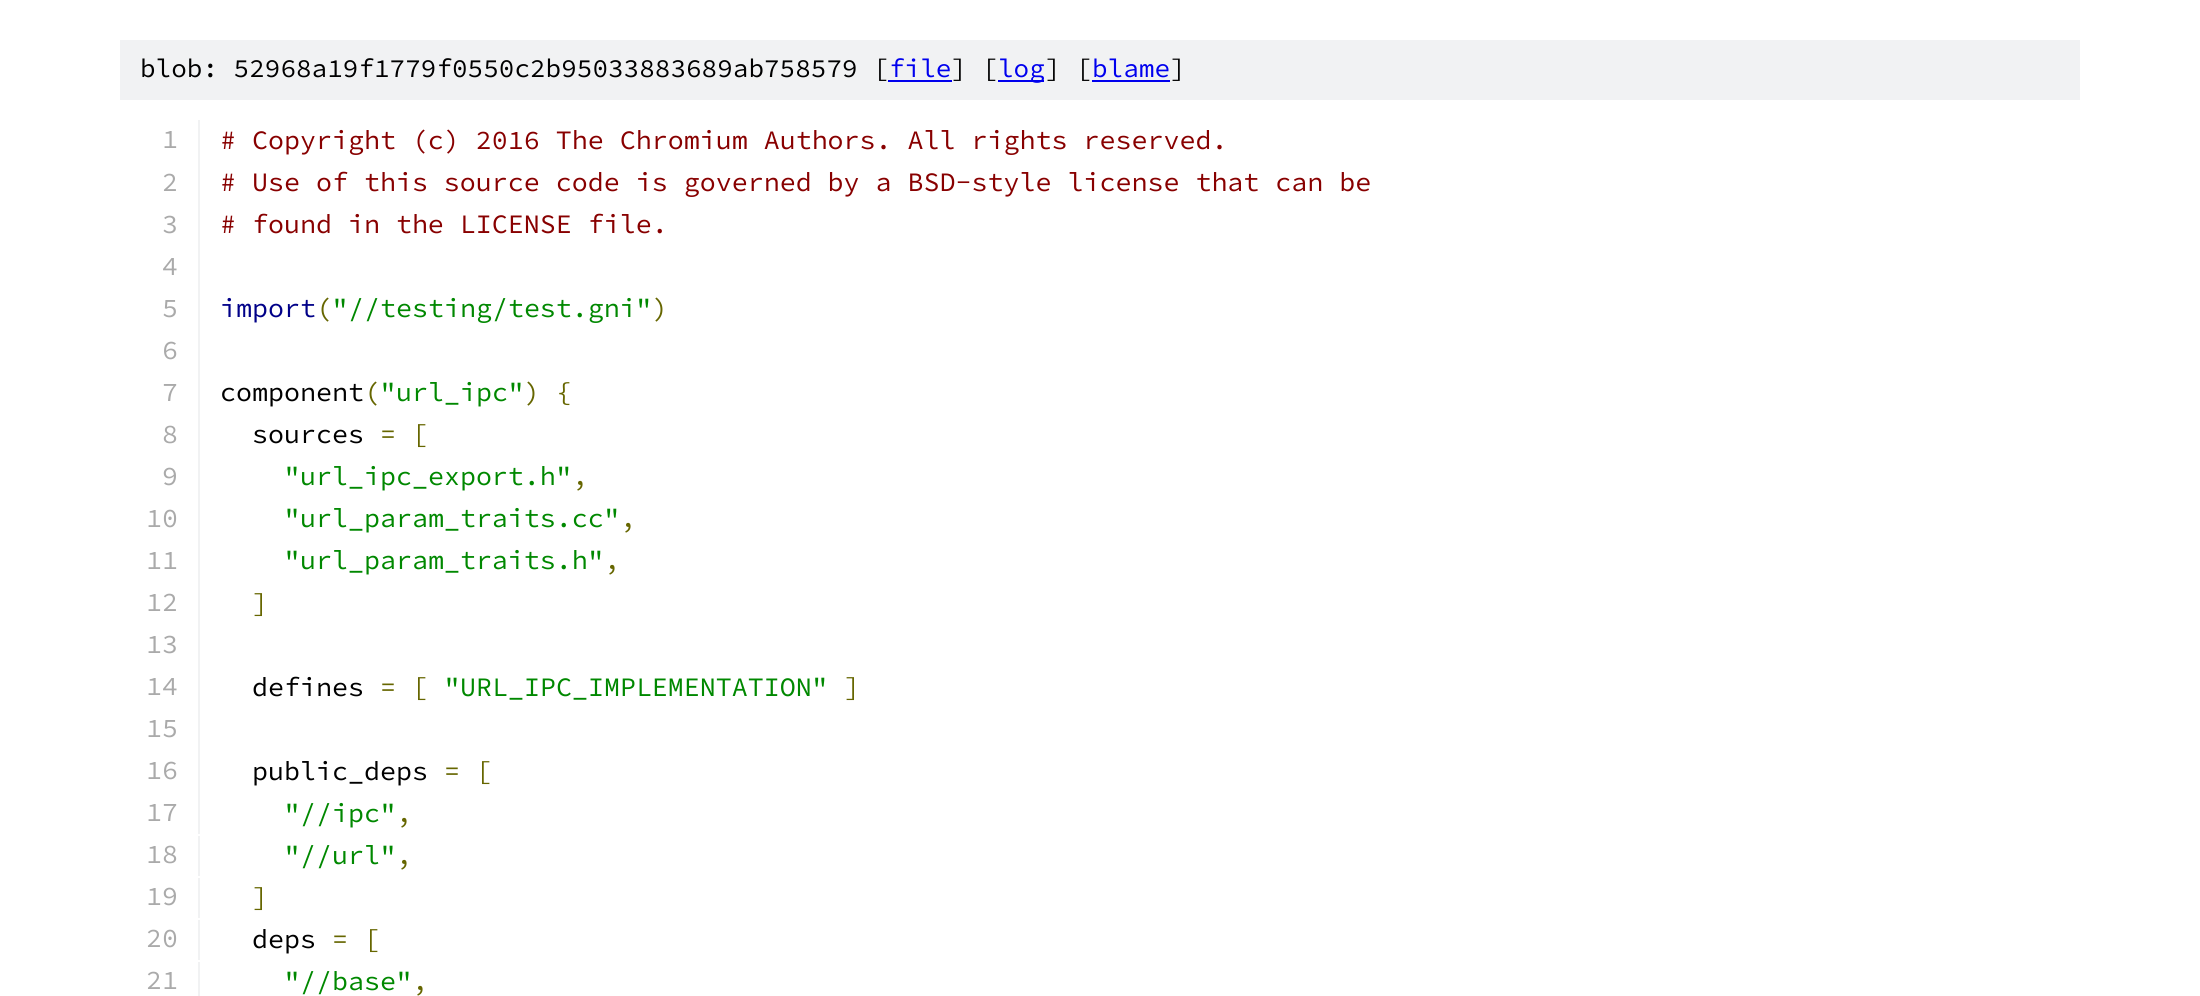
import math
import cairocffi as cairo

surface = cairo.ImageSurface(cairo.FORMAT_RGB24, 2200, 996)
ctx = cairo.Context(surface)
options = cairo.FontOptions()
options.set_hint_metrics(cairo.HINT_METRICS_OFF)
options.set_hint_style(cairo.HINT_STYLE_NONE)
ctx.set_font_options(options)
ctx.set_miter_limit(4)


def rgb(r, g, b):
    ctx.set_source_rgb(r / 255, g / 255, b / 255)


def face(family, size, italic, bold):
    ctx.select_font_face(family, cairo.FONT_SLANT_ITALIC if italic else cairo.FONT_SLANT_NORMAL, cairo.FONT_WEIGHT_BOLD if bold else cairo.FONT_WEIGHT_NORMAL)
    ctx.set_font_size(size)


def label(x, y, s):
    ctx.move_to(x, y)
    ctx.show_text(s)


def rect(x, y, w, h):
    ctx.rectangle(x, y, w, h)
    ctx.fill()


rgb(255, 255, 255)
ctx.paint()
rgb(241, 242, 243)
rect(120, 40, 1960, 60)
face('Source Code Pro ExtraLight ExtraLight', 26, 0, 0)
rgb(0, 0, 0)
label(140, 77, 'blob: 52968a19f1779f0550c2b95033883689ab758579 [')
rgb(0, 0, 238)
label(889, 77, 'file')
rect(888, 80, 64, 2)
rgb(0, 0, 0)
label(951, 77, '] [')
rgb(0, 0, 238)
rect(998, 80, 46, 2)
label(998, 77, 'log')
rgb(0, 0, 0)
label(1045, 77, '] [')
rgb(0, 0, 238)
label(1092, 77, 'blame')
rect(1092, 80, 78, 2)
rgb(0, 0, 0)
label(1170, 77, ']')
rgb(241, 242, 243)
rect(198, 120, 2, 714)
face('Source Code Pro ExtraLight ExtraLight', 26.65, 0, 0)
rgb(170, 170, 170)
label(162, 148, '1')
rgb(136, 0, 0)
label(220, 149, '# Copyright (c) 2016 The Chromium Authors. All rights reserved.')
rgb(170, 170, 170)
label(162, 191, '2')
rgb(136, 0, 0)
label(220, 191, '# Use of this source code is governed by a BSD-style license that can be')
rgb(170, 170, 170)
label(162, 233, '3')
rgb(136, 0, 0)
label(220, 233, '# found in the LICENSE file.')
rgb(170, 170, 170)
label(162, 275, '4')
label(162, 317, '5')
rgb(0, 0, 136)
label(220, 317, 'import')
rgb(102, 102, 0)
label(316, 317, '(')
rgb(0, 136, 0)
label(332, 317, '"//testing/test.gni"')
rgb(102, 102, 0)
label(652, 317, ')')
rgb(170, 170, 170)
label(162, 359, '6')
label(162, 401, '7')
rgb(0, 0, 0)
label(220, 401, 'component')
rgb(102, 102, 0)
label(364, 401, '(')
rgb(0, 136, 0)
label(380, 401, '"url_ipc"')
rgb(102, 102, 0)
label(524, 401, ') {')
rgb(170, 170, 170)
label(162, 443, '8')
rgb(0, 0, 0)
label(252, 443, 'sources')
rgb(102, 102, 0)
label(380, 443, '= [')
rgb(170, 170, 170)
label(162, 485, '9')
rgb(0, 136, 0)
label(284, 485, '"url_ipc_export.h"')
rgb(102, 102, 0)
label(572, 485, ',')
rgb(170, 170, 170)
label(146, 527, '10')
rgb(0, 136, 0)
label(284, 527, '"url_param_traits.cc"')
rgb(102, 102, 0)
label(620, 527, ',')
rgb(170, 170, 170)
label(146, 569, '11')
rgb(0, 136, 0)
label(284, 569, '"url_param_traits.h"')
rgb(102, 102, 0)
label(604, 569, ',')
rgb(170, 170, 170)
label(146, 611, '12')
rgb(102, 102, 0)
label(252, 612, ']')
rgb(170, 170, 170)
label(146, 653, '13')
label(146, 695, '14')
rgb(0, 0, 0)
label(252, 696, 'defines')
rgb(102, 102, 0)
label(380, 696, '= [')
rgb(0, 136, 0)
label(444, 696, '"URL_IPC_IMPLEMENTATION"')
rgb(102, 102, 0)
label(844, 696, ']')
rgb(170, 170, 170)
label(146, 737, '15')
label(146, 779, '16')
rgb(0, 0, 0)
label(252, 780, 'public_deps')
rgb(102, 102, 0)
label(444, 780, '= [')
rgb(170, 170, 170)
label(146, 821, '17')
rgb(0, 136, 0)
label(284, 822, '"//ipc"')
rgb(102, 102, 0)
label(396, 822, ',')
rgb(241, 242, 243)
rect(198, 836, 2, 40)
rgb(170, 170, 170)
label(146, 863, '18')
rgb(0, 136, 0)
label(284, 864, '"//url"')
rgb(102, 102, 0)
label(396, 864, ',')
rgb(241, 242, 243)
rect(198, 878, 2, 40)
rgb(170, 170, 170)
label(146, 905, '19')
rgb(102, 102, 0)
label(252, 906, ']')
rgb(241, 242, 243)
rect(198, 920, 2, 40)
rgb(170, 170, 170)
label(146, 947, '20')
rgb(0, 0, 0)
label(252, 948, 'deps')
rgb(102, 102, 0)
label(332, 948, '= [')
rgb(241, 242, 243)
rect(198, 962, 2, 34)
rgb(170, 170, 170)
label(146, 989, '21')
rgb(0, 136, 0)
label(284, 990, '"//base"')
rgb(102, 102, 0)
label(412, 990, ',')
surface.write_to_png('render.png')
